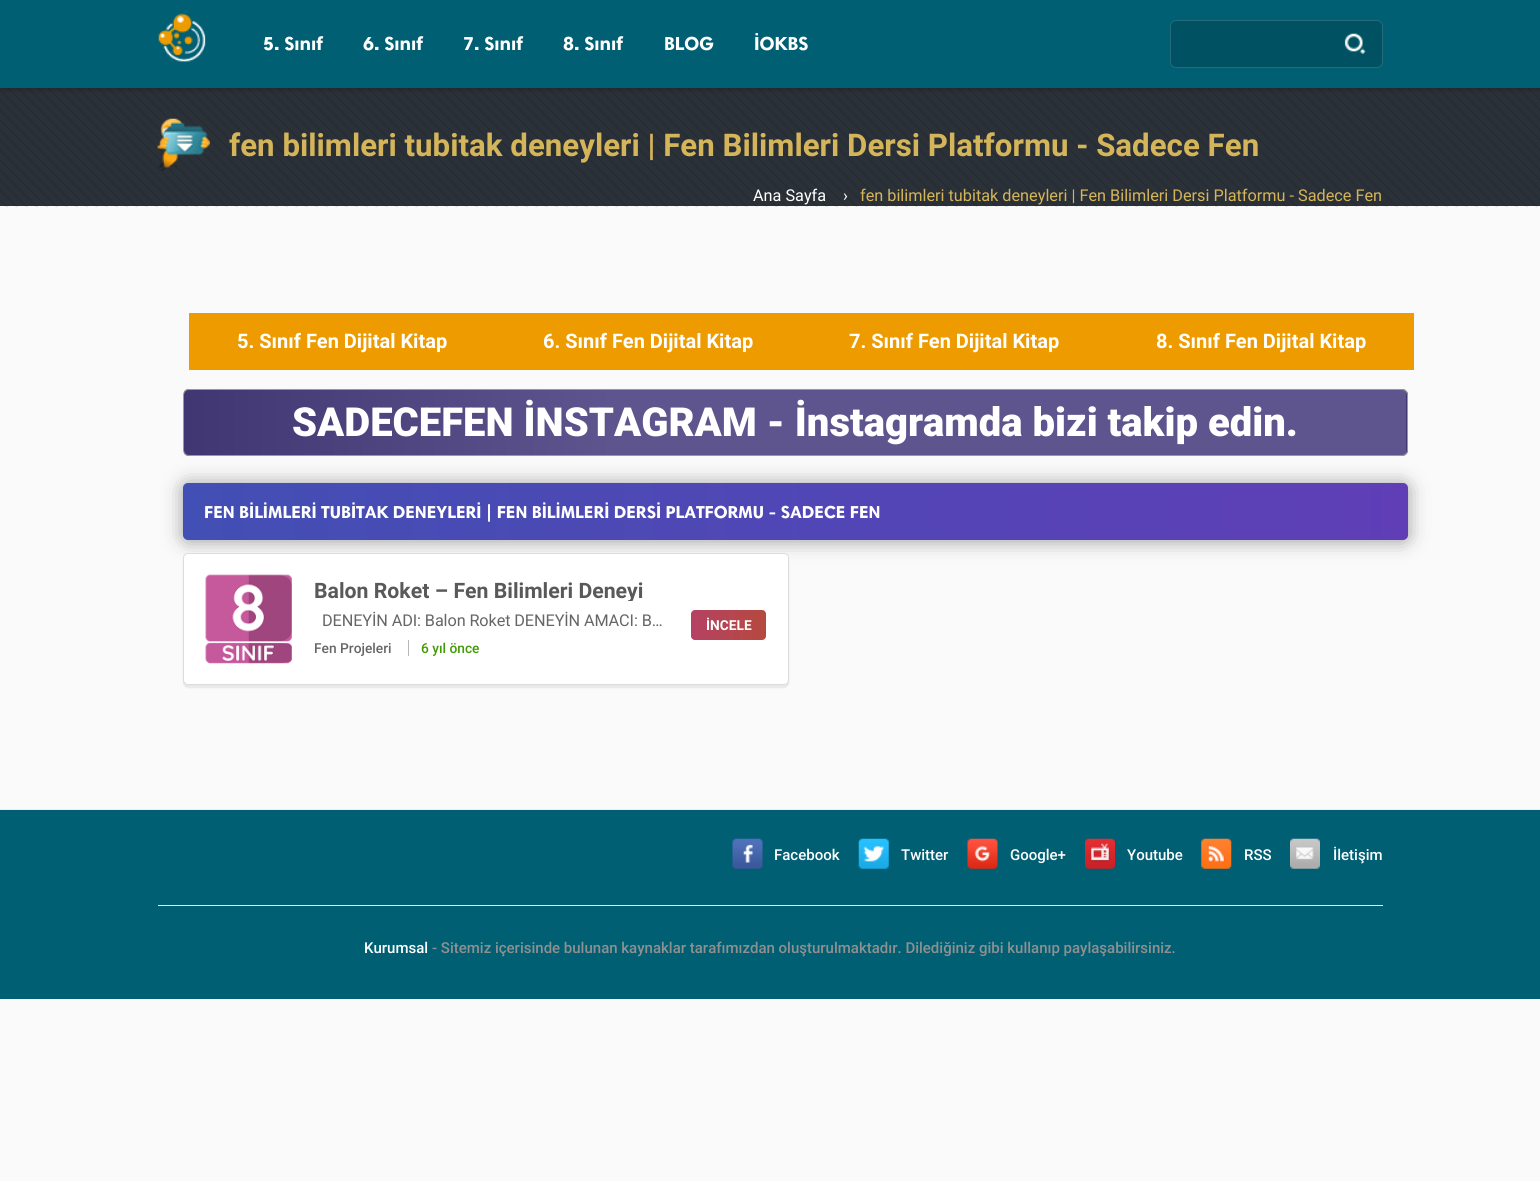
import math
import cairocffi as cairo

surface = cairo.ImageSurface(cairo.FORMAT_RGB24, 1540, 1181)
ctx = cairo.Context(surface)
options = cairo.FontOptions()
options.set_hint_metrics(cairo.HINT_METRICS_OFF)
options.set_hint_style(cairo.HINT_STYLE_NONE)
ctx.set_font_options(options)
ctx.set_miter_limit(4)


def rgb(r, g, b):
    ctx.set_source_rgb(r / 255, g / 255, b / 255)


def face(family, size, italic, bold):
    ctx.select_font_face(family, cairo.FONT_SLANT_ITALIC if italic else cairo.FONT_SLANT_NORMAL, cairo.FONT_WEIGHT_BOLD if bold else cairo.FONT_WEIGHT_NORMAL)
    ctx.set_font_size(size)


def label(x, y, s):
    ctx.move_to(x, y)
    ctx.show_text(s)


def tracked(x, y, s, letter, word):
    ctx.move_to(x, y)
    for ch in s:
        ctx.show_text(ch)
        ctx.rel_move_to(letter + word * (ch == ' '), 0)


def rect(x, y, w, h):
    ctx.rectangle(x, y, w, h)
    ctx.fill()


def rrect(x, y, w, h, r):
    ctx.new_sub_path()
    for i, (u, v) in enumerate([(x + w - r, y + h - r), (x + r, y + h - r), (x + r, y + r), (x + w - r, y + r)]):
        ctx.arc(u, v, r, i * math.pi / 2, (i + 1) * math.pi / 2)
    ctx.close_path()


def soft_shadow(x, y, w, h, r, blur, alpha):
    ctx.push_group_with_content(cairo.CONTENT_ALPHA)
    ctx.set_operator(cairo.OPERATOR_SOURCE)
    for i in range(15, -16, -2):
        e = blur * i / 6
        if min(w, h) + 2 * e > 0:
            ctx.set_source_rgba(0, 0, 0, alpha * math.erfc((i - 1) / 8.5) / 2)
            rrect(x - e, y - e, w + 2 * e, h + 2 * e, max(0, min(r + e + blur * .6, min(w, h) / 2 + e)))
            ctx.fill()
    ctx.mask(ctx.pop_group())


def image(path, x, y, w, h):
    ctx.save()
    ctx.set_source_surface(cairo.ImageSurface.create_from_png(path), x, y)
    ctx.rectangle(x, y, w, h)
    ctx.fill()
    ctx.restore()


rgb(250, 250, 250)
ctx.paint()
rgb(43, 49, 56)
rect(0, 88, 1540, 118)
image('image2.png', 0, 88, 1540, 119)
rgb(17, 21, 25)
soft_shadow(0, 3, 1540, 87, 0, 2.5, 0.36)
rgb(0, 95, 115)
rect(0, 0, 1540, 88)
image('image0.png', 158, 13, 48, 49)
face('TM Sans', 19, 0, 1)
rgb(255, 255, 255)
label(263, 50, '5. Sınıf')
label(363, 50, '6. Sınıf')
label(463, 50, '7. Sınıf')
label(563, 50, '8. Sınıf')
label(664, 50, 'BLOG')
label(754, 50, 'İOKBS')
rgb(0, 81, 98)
rrect(1170, 20, 213, 48, 6)
ctx.fill()
rrect(1170.5, 20.5, 212, 47, 5.5)
ctx.set_source_rgba(1, 1, 1, 0.15)
ctx.set_line_width(1)
ctx.stroke()
image('image1.png', 1344, 33, 22, 21)
image('image3.png', 157, 118, 53, 53)
face('Roboto', 31.25, 0, 1)
rgb(213, 181, 90)
label(229, 156, 'fen bilimleri tubitak deneyleri | Fen Bilimleri Dersi Platformu - Sadece Fen')
face('Roboto', 16.25, 0, 0)
rgb(255, 255, 255)
label(753, 201, 'Ana Sayfa')
label(843, 201, '›')
rgb(213, 181, 90)
label(860, 201, 'fen bilimleri tubitak deneyleri | Fen Bilimleri Dersi Platformu - Sadece Fen')
rgb(238, 155, 0)
rect(189, 313, 1225, 57)
face('Roboto', 20, 0, 1)
rgb(255, 255, 255)
label(237, 348, '5. Sınıf Fen Dijital Kitap')
label(543, 348, '6. Sınıf Fen Dijital Kitap')
label(849, 348, '7. Sınıf Fen Dijital Kitap')
label(1156, 348, '8. Sınıf Fen Dijital Kitap')
ctx.save()
rrect(183, 389, 1225, 67, 6)
ctx.clip()
gradient = cairo.LinearGradient(184, 423, 1406, 422)
gradient.add_color_stop_rgba(0, 0.251, 0.212, 0.443, 1)
gradient.add_color_stop_rgba(0.35, 0.369, 0.329, 0.557, 1)
ctx.set_source(gradient)
rect(184, 389, 1222, 67)
gradient = cairo.LinearGradient(1406, 423, 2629, 422)
gradient.add_color_stop_rgba(0, 0.251, 0.212, 0.443, 1)
gradient.add_color_stop_rgba(0.35, 0.369, 0.329, 0.557, 1)
ctx.set_source(gradient)
rect(1406, 389, 2, 67)
ctx.restore()
rrect(183.5, 389.5, 1224, 66, 5.5)
rgb(153, 153, 153)
ctx.stroke()
face('Roboto Black', 40, 0, 0)
rgb(255, 255, 255)
label(292, 436, 'SADECEFEN İNSTAGRAM - İnstagramda bizi takip edin.')
rgb(17, 21, 25)
soft_shadow(183, 484, 1225, 57, 5, 9.5, 0.42)
gradient = cairo.LinearGradient(1408, 511, 183, 511)
gradient.add_color_stop_rgba(0, 0.373, 0.243, 0.714, 1)
gradient.add_color_stop_rgba(1, 0.259, 0.31, 0.71, 1)
ctx.set_source(gradient)
rrect(183, 483, 1225, 57, 5)
ctx.fill()
face('TM Sans', 17.5, 0, 1)
rgb(255, 255, 255)
label(204, 518, 'FEN BİLİMLERİ TUBİTAK DENEYLERİ | FEN BİLİMLERİ DERSİ PLATFORMU - SADECE FEN')
rgb(0, 0, 0)
soft_shadow(183, 555, 606, 133, 5, 0.5, 0.07)
rgb(255, 255, 255)
rrect(183.5, 553.5, 605, 131, 4.5)
ctx.fill_preserve()
rgb(220, 220, 220)
ctx.stroke()
image('image4.png', 205, 574, 87, 90)
ctx.save()
ctx.rectangle(314, 580, 454, 21)
ctx.clip()
face('Roboto', 21.25, 0, 1)
rgb(89, 89, 89)
label(314, 598, 'Balon Roket – Fen Bilimleri Deneyi')
ctx.restore()
face('Roboto', 16.25, 0, 0)
rgb(102, 102, 102)
tracked(322, 626, 'DENEYİN ADI: Balon Roket DENEYİN AMACI: B…', -0.1, 0)
gradient = cairo.LinearGradient(766, 625, 691, 625)
gradient.add_color_stop_rgba(0, 0.714, 0.286, 0.243, 1)
gradient.add_color_stop_rgba(1, 0.71, 0.259, 0.392, 1)
ctx.set_source(gradient)
rrect(691, 610, 75, 30, 4)
ctx.fill()
face('Roboto', 13.75, 0, 1)
rgb(255, 255, 255)
label(706, 630, 'İNCELE')
face('Roboto Medium', 13.75, 0, 0)
rgb(102, 102, 102)
label(314, 653, 'Fen Projeleri')
rgb(66, 154, 4)
label(421, 653, '6 yıl önce')
rgb(182, 182, 182)
rect(408, 640, 1, 16)
rgb(0, 95, 115)
rect(0, 810, 1540, 189)
rgb(238, 238, 238)
rect(0, 809, 1540, 1)
image('image5.png', 732, 838, 31, 31)
face('Roboto Medium', 15, 0, 0)
rgb(255, 255, 255)
label(774, 860, 'Facebook')
image('image6.png', 858, 838, 31, 31)
label(901, 860, 'Twitter')
image('image7.png', 967, 838, 31, 31)
label(1010, 860, 'Google+')
image('image8.png', 1085, 838, 30, 31)
label(1127, 860, 'Youtube')
image('image9.png', 1201, 838, 31, 31)
label(1244, 860, 'RSS')
image('image10.png', 1290, 838, 30, 31)
label(1333, 860, 'İletişim')
rgb(238, 238, 238)
rect(158, 905, 1225, 1)
rgb(255, 255, 255)
label(364, 953, 'Kurumsal')
rgb(144, 144, 144)
label(432, 953, '- Sitemiz içerisinde bulunan kaynaklar tarafımızdan oluşturulmaktadır. Dilediğiniz gibi kullanıp paylaşabilirsiniz.')
surface.write_to_png('render.png')
